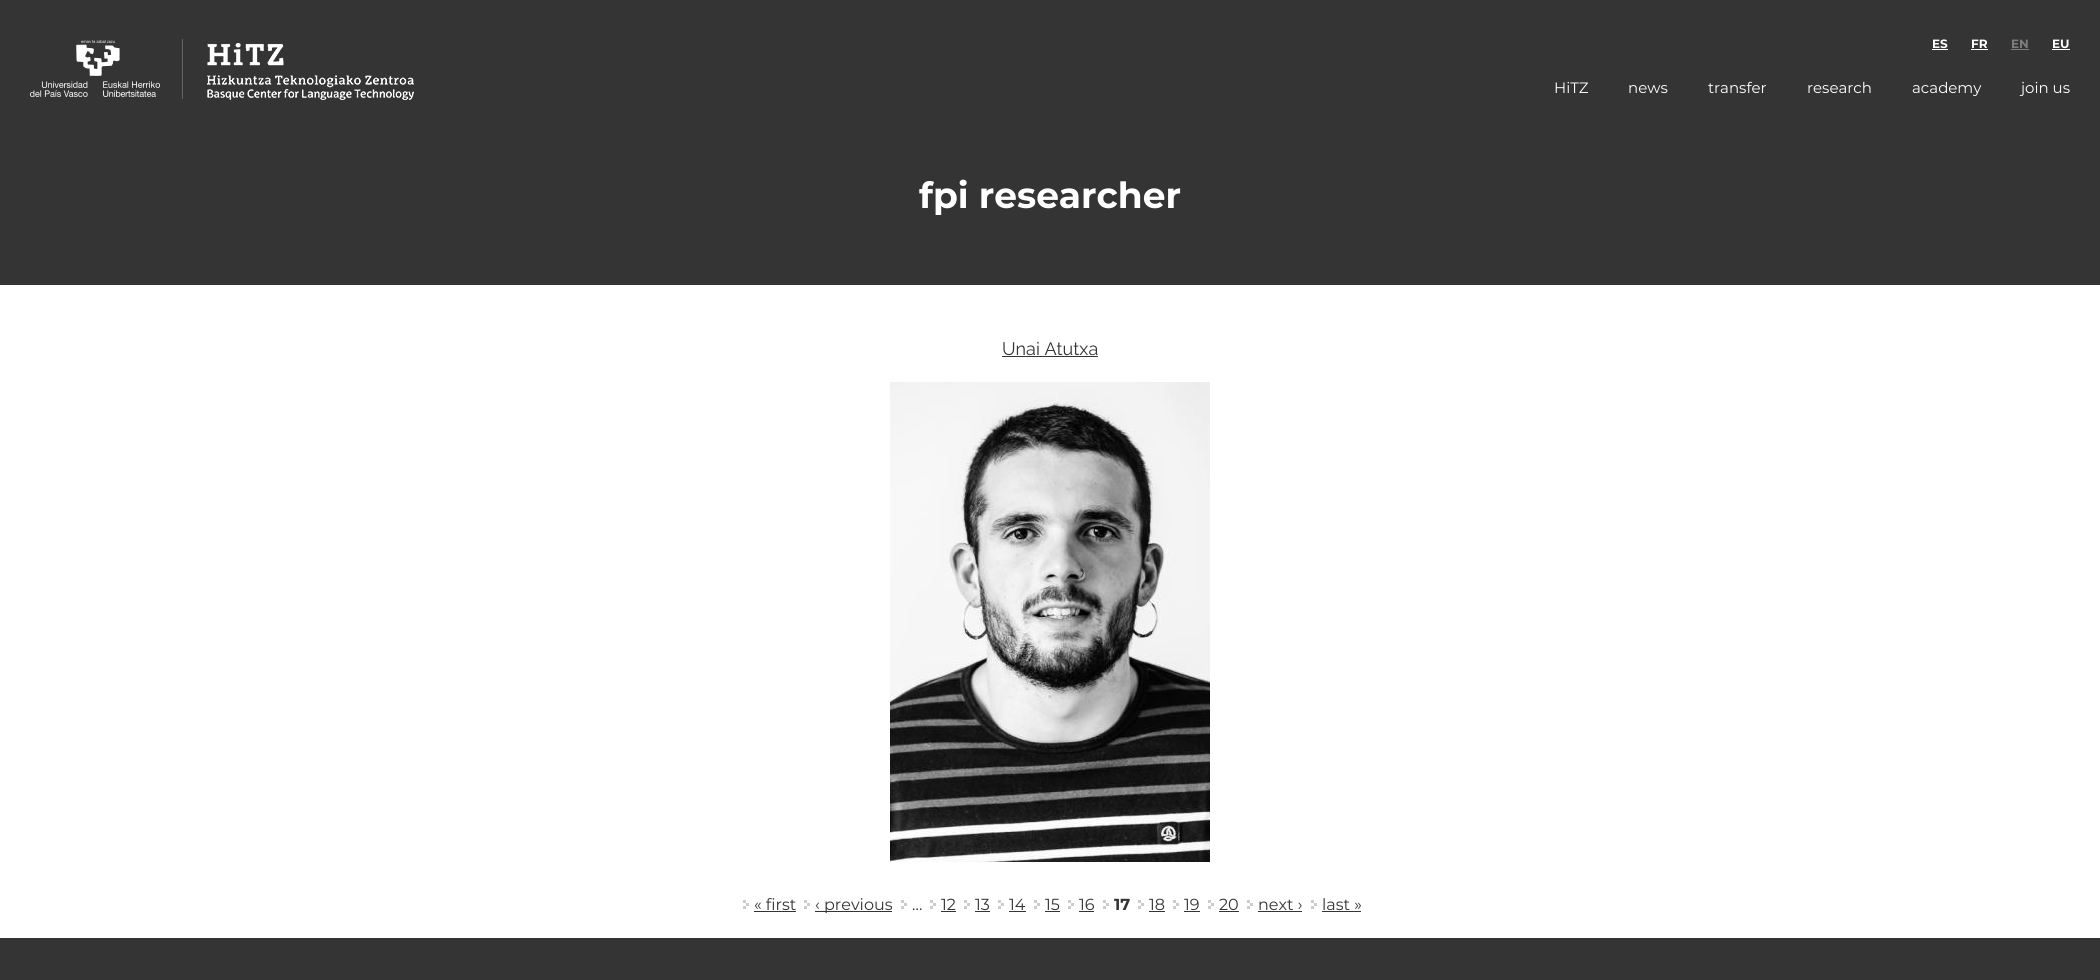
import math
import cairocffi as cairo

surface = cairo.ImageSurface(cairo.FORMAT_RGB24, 2100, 980)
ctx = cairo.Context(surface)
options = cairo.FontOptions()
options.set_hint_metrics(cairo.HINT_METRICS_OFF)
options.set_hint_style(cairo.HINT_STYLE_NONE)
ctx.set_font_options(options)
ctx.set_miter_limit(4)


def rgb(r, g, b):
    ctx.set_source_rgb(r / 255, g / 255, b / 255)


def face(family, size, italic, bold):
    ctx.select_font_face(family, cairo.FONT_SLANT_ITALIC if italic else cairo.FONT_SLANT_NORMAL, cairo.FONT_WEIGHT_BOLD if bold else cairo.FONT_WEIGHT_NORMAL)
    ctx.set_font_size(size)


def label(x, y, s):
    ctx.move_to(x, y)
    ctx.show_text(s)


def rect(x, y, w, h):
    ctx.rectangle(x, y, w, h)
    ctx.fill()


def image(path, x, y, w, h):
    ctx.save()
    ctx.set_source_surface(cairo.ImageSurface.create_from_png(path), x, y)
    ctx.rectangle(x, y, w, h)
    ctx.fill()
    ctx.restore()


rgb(255, 255, 255)
ctx.paint()
rgb(52, 52, 52)
rect(0, 0, 2100, 285)
face('Montserrat', 12, 0, 1)
rgb(255, 255, 255)
label(1932, 48, 'ES')
rect(1932, 49, 16, 1)
label(1971, 48, 'FR')
rect(1971, 49, 17, 1)
rgb(125, 125, 125)
label(2011, 48, 'EN')
rect(2011, 49, 18, 1)
rgb(255, 255, 255)
label(2052, 48, 'EU')
rect(2052, 49, 18, 1)
image('image0.png', 30, 39, 384, 61)
face('Montserrat', 15, 0, 0)
label(1554, 93, 'HiTZ')
label(1628, 93, 'news')
label(1708, 93, 'transfer')
label(1807, 93, 'research')
label(1912, 93, 'academy')
label(2021, 93, 'join us')
face('Montserrat', 36, 0, 1)
label(919, 208, 'fpi researcher')
face('Raleway', 18, 0, 0)
rgb(52, 52, 52)
label(1002, 355, 'Unai Atutxa')
rect(1002, 356, 96, 1)
image('image1.png', 890, 382, 320, 480)
image('image2.png', 743, 900, 6, 9)
face('Montserrat', 16, 0, 0)
label(754, 910, '« first')
rect(754, 911, 42, 1)
image('image2.png', 804, 900, 6, 9)
rect(815, 911, 77, 1)
label(815, 910, '‹ previous')
image('image2.png', 901, 900, 6, 9)
image('image2.png', 930, 900, 6, 9)
label(941, 910, '12')
rect(941, 911, 15, 1)
image('image2.png', 964, 900, 6, 9)
label(975, 910, '13')
rect(975, 911, 15, 1)
image('image2.png', 998, 900, 6, 9)
label(1009, 910, '14')
rect(1009, 911, 17, 1)
image('image2.png', 1034, 900, 6, 9)
label(1045, 910, '15')
rect(1045, 911, 15, 1)
image('image2.png', 1068, 900, 6, 9)
label(1079, 910, '16')
rect(1079, 911, 15, 1)
image('image2.png', 1103, 900, 6, 9)
face('Montserrat', 16, 0, 1)
label(1114, 910, '17')
image('image2.png', 1138, 900, 6, 9)
face('Montserrat', 16, 0, 0)
label(1149, 910, '18')
rect(1149, 911, 16, 1)
image('image2.png', 1173, 900, 6, 9)
label(1184, 910, '19')
rect(1184, 911, 16, 1)
image('image2.png', 1208, 900, 6, 9)
label(1219, 910, '20')
rect(1219, 911, 20, 1)
image('image2.png', 1247, 900, 6, 9)
label(1258, 910, 'next ›')
rect(1258, 911, 44, 1)
image('image2.png', 1311, 900, 6, 9)
label(1322, 910, 'last »')
rect(1322, 911, 39, 1)
label(912, 910, '…')
rect(0, 938, 2100, 42)
surface.write_to_png('render.png')
